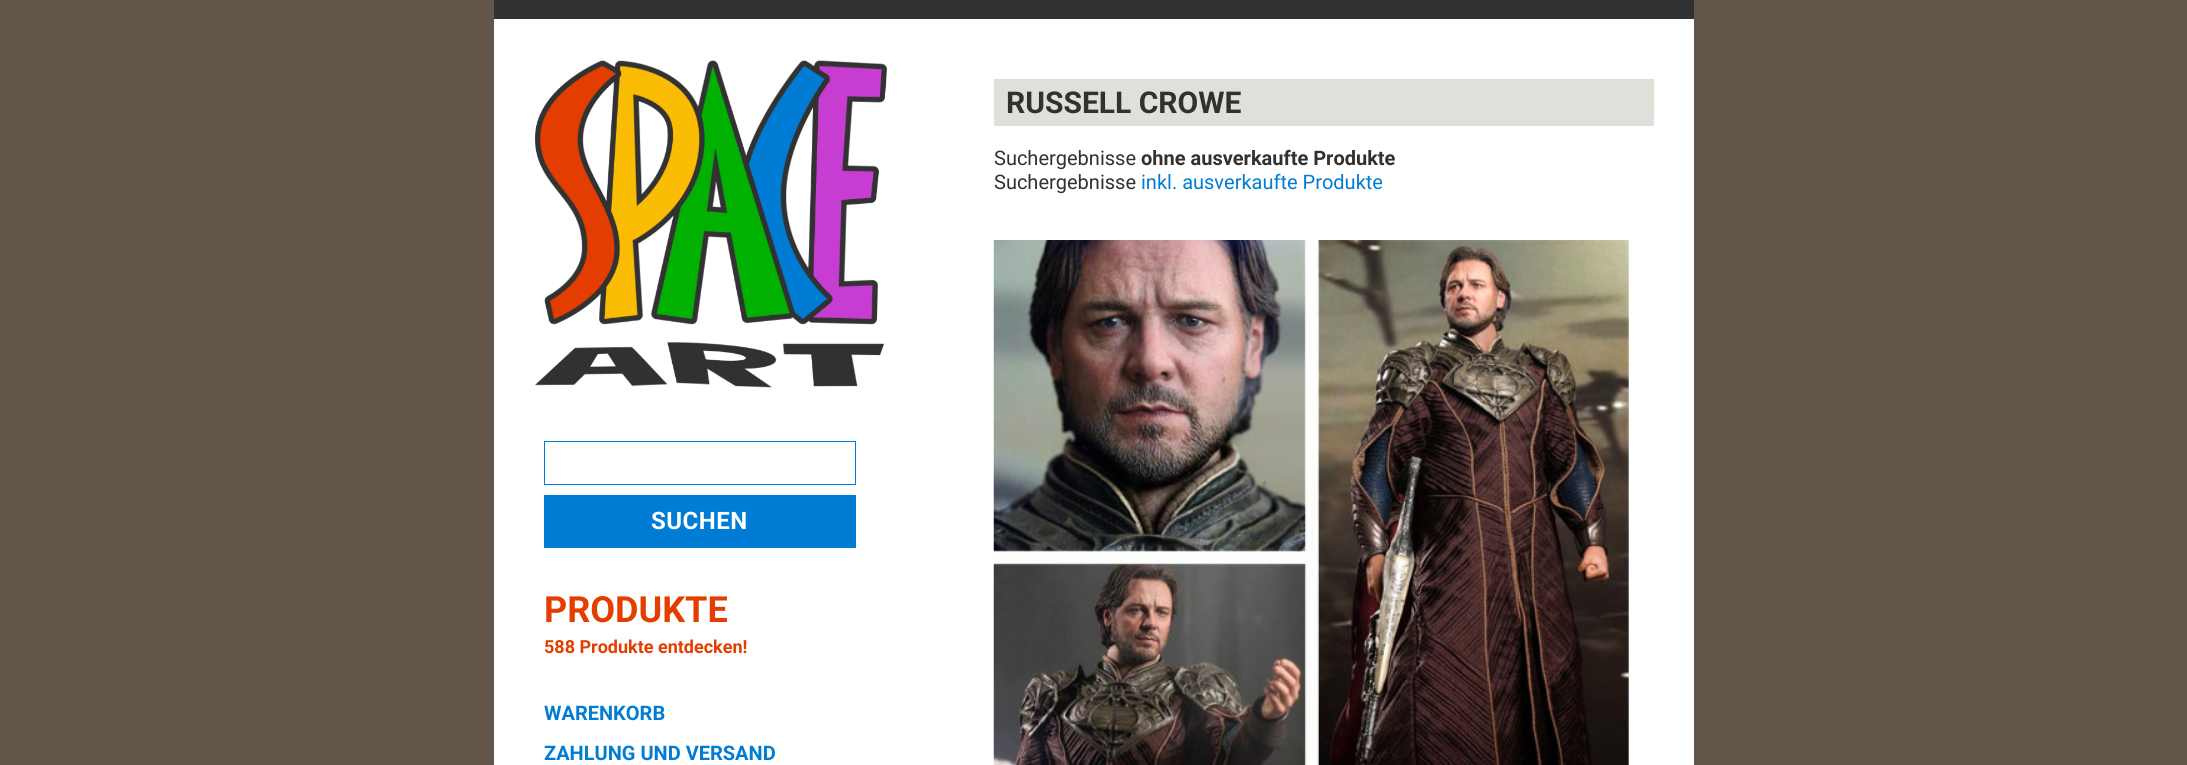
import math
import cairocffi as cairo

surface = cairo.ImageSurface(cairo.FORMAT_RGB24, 2187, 765)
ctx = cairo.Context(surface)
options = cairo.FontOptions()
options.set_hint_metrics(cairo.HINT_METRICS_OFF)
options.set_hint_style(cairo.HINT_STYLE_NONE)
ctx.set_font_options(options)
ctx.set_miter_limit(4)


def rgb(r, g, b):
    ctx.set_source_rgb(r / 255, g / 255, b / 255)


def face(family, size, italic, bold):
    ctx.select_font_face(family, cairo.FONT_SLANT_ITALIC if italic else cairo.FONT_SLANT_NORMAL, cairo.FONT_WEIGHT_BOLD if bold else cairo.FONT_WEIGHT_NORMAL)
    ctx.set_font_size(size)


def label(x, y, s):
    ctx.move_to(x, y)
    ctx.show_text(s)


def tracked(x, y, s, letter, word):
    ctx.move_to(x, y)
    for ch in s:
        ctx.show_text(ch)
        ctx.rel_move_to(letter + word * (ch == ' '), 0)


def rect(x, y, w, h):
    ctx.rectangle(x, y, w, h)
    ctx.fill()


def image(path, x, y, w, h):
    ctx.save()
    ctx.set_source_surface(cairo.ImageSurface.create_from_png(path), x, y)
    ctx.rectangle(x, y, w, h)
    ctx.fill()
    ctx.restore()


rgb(97, 86, 73)
ctx.paint()
rgb(255, 255, 255)
rect(494, 19, 1200, 746)
rgb(49, 49, 49)
rect(494, 0, 1200, 19)
rgb(224, 223, 218)
rect(994, 79, 660, 47)
face('Roboto', 30, 0, 1)
rgb(49, 49, 49)
label(1006, 113, 'RUSSELL CROWE')
face('Roboto', 20, 0, 0)
label(994, 165, 'Suchergebnisse')
face('Roboto', 20, 0, 1)
label(1141, 165, 'ohne ausverkaufte Produkte')
face('Roboto', 20, 0, 0)
label(994, 189, 'Suchergebnisse')
rgb(0, 124, 213)
label(1141, 189, 'inkl. ausverkaufte Produkte')
image('image0.png', 993, 240, 636, 525)
image('image1.png', 535, 60, 352, 328)
ctx.rectangle(544.5, 441.5, 311, 43)
ctx.set_line_width(1)
ctx.stroke()
rect(544, 495, 312, 53)
face('Roboto', 24, 0, 1)
rgb(255, 255, 255)
tracked(651, 529, 'SUCHEN', 0.5, 0)
face('Roboto', 36, 0, 1)
rgb(228, 61, 0)
label(544, 622, 'PRODUKTE')
face('Roboto', 18, 0, 1)
label(544, 653, '588 Produkte entdecken!')
face('Roboto', 20, 0, 1)
rgb(0, 124, 213)
label(544, 720, 'WARENKORB')
label(544, 760, 'ZAHLUNG UND VERSAND')
surface.write_to_png('render.png')
